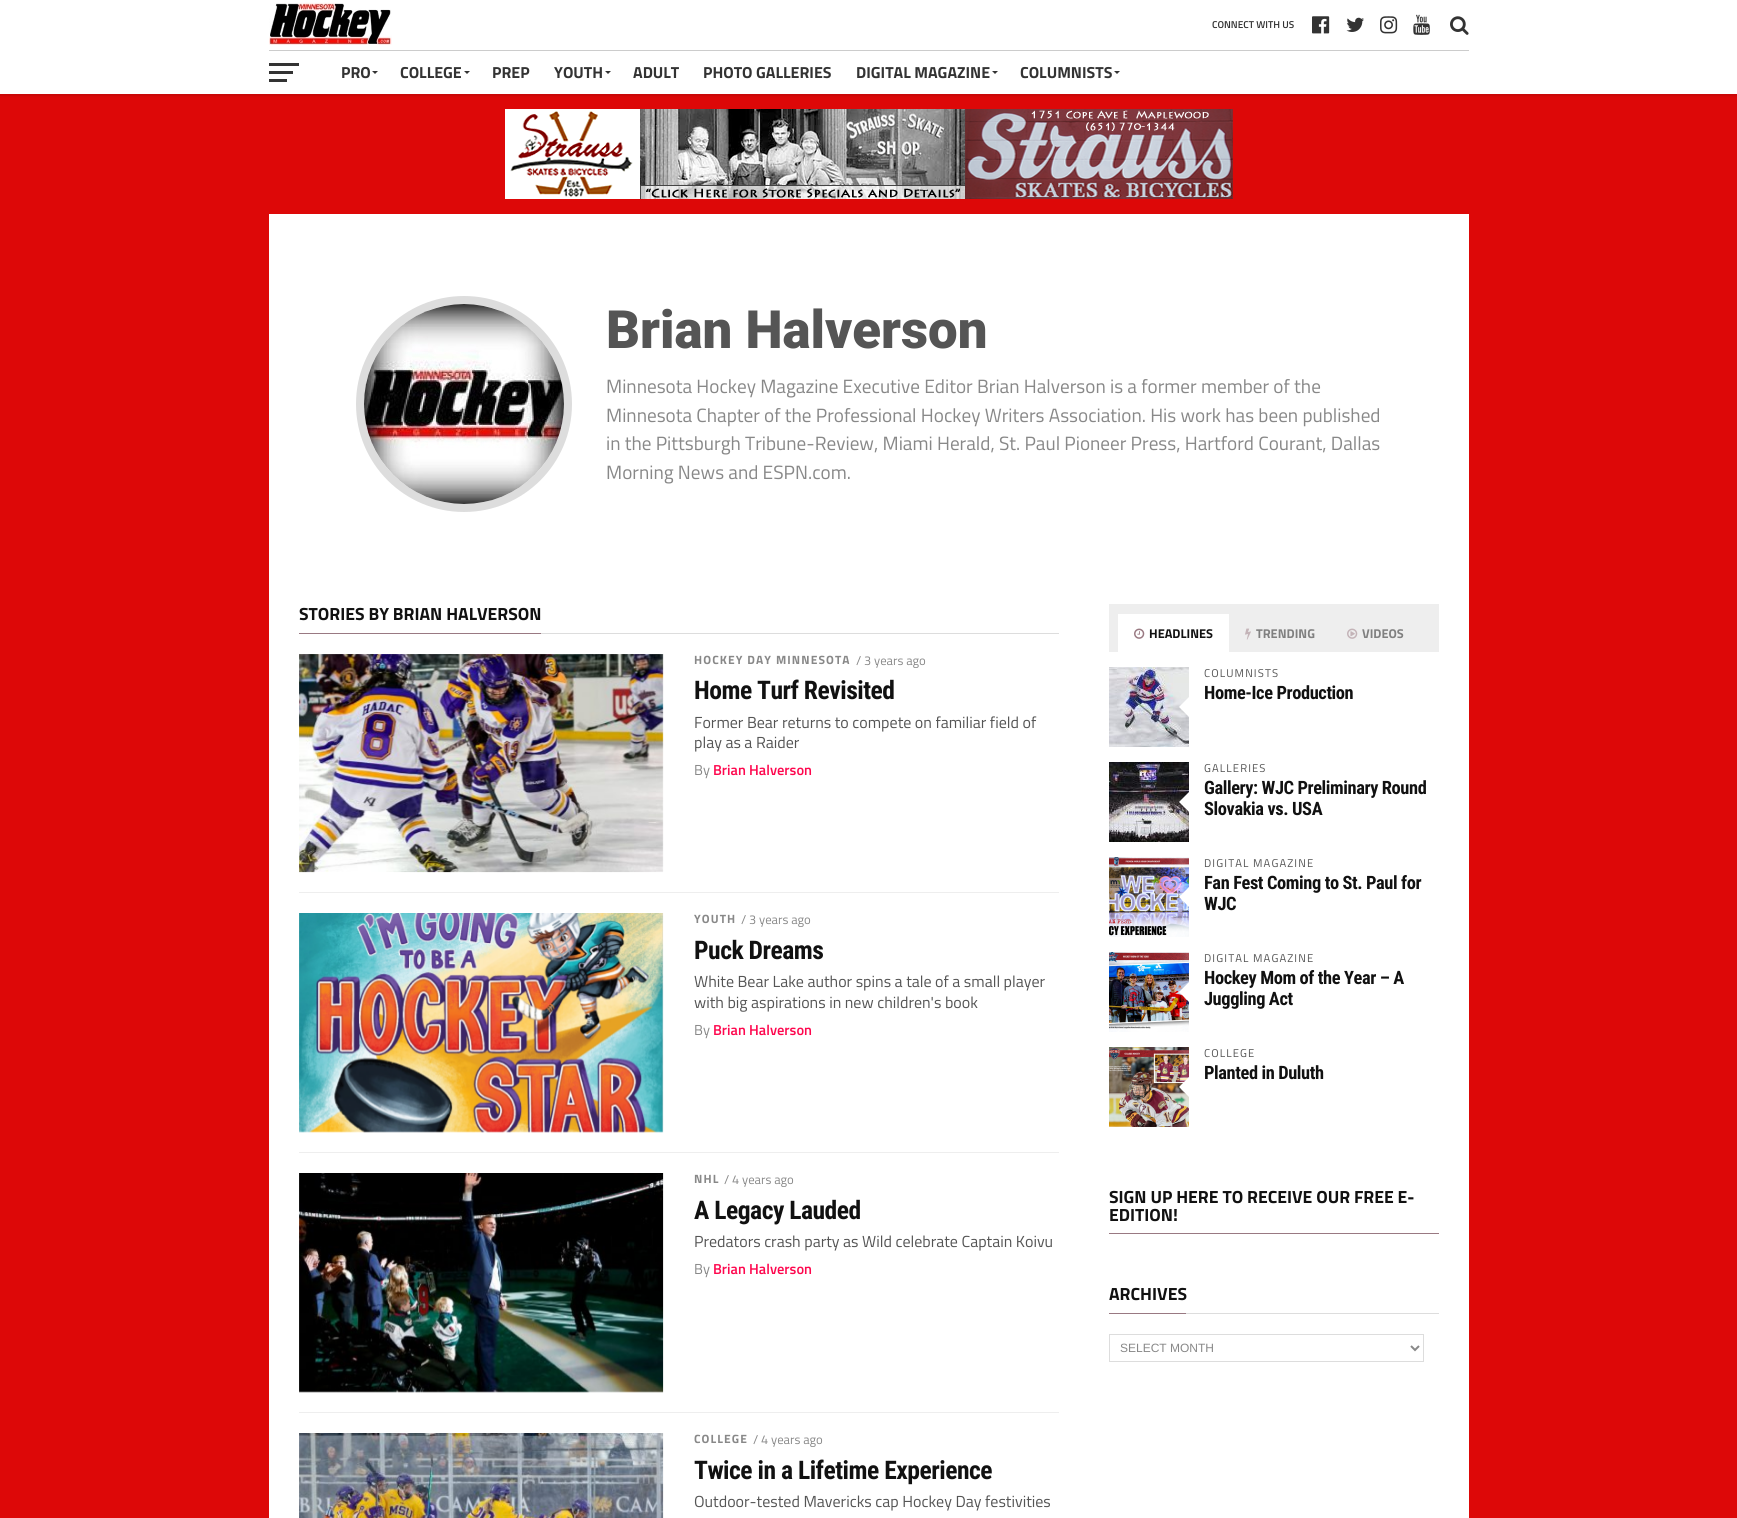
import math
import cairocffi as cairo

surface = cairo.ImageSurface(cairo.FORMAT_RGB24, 1737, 1518)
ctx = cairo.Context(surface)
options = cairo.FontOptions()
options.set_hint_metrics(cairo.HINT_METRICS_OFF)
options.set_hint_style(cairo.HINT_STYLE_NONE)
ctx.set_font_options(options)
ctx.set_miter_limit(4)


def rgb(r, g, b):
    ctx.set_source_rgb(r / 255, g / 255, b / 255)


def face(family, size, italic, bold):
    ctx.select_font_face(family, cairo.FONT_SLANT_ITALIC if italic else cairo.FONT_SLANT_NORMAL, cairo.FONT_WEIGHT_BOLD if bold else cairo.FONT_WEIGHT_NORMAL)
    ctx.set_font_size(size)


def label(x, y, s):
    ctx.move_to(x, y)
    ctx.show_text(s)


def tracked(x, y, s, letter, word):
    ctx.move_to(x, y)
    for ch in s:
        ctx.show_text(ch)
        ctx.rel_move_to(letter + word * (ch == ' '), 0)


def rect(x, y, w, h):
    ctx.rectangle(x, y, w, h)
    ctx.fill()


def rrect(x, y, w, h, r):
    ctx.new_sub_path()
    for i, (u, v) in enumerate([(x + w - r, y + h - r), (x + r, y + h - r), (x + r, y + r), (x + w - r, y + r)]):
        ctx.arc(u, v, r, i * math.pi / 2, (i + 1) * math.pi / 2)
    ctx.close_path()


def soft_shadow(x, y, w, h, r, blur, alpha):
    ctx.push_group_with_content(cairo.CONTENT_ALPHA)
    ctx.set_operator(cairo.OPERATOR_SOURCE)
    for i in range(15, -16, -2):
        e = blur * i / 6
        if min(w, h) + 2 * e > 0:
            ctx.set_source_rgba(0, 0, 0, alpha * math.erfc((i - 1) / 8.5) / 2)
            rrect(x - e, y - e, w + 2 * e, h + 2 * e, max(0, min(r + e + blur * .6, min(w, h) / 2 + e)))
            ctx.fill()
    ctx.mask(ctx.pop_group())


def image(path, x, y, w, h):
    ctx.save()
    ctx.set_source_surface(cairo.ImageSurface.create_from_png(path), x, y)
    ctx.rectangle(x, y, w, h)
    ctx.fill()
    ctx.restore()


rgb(221, 8, 8)
ctx.paint()
rgb(0, 0, 0)
soft_shadow(0, 2, 1737, 94, 0, 1, 0.1)
rgb(255, 255, 255)
rect(0, 0, 1737, 94)
rgb(204, 204, 204)
rect(269, 50, 1200, 1)
image('image0.png', 269, 2, 123, 43)
face('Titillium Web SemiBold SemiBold', 10, 0, 0)
rgb(51, 51, 51)
label(1212, 28, 'CONNECT WITH US')
image('image1.png', 1312, 16, 18, 18)
image('image2.png', 1346, 17, 18, 15)
image('image3.png', 1380, 16, 18, 18)
image('image4.png', 1413, 14, 17, 21)
image('image5.png', 1450, 16, 19, 19)
rect(269, 63, 30, 3)
rect(269, 71, 24, 3)
rect(269, 79, 18, 3)
face('Titillium Web', 16, 0, 1)
label(341, 78, 'PRO')
ctx.new_path()
ctx.move_to(372, 71)
ctx.line_to(378, 71)
ctx.line_to(375, 74)
ctx.close_path()
ctx.fill()
label(400, 78, 'COLLEGE')
ctx.new_path()
ctx.move_to(464, 71)
ctx.line_to(470, 71)
ctx.line_to(467, 74)
ctx.close_path()
ctx.fill()
label(492, 78, 'PREP')
label(554, 78, 'YOUTH')
ctx.new_path()
ctx.move_to(605, 71)
ctx.line_to(611, 71)
ctx.line_to(608, 74)
ctx.close_path()
ctx.fill()
label(633, 78, 'ADULT')
label(703, 78, 'PHOTO GALLERIES')
label(856, 78, 'DIGITAL MAGAZINE')
ctx.new_path()
ctx.move_to(992, 71)
ctx.line_to(998, 71)
ctx.line_to(995, 74)
ctx.close_path()
ctx.fill()
label(1020, 78, 'COLUMNISTS')
ctx.new_path()
ctx.move_to(1114, 71)
ctx.line_to(1120, 71)
ctx.line_to(1117, 74)
ctx.close_path()
ctx.fill()
image('image6.png', 505, 109, 728, 90)
rgb(255, 255, 255)
rect(269, 214, 1200, 1304)
ctx.arc(464, 404, 104, 0, 2 * math.pi)
rgb(221, 221, 221)
ctx.set_line_width(8)
ctx.stroke()
image('image7.png', 364, 304, 200, 200)
face('Roboto Black', 52.75, 0, 0)
rgb(85, 85, 85)
label(606, 348, 'Brian Halverson')
face('Titillium Web', 19.2, 0, 0)
rgb(136, 136, 136)
label(606, 393, 'Minnesota Hockey Magazine Executive Editor Brian Halverson is a former member of the')
label(606, 422, 'Minnesota Chapter of the Professional Hockey Writers Association. His work has been published')
label(606, 450, 'in the Pittsburgh Tribune-Review, Miami Herald, St. Paul Pioneer Press, Hartford Courant, Dallas')
label(606, 479, 'Morning News and ESPN.com.')
rgb(221, 221, 221)
rect(541, 633, 518, 1)
rgb(153, 121, 130)
rect(299, 633, 242, 1)
face('Titillium Web', 17.6, 0, 1)
rgb(17, 17, 17)
label(299, 620, 'STORIES BY BRIAN HALVERSON')
image('image8.png', 299, 654, 365, 219)
face('Titillium Web', 12, 0, 1)
rgb(136, 136, 136)
tracked(694, 664, 'HOCKEY DAY MINNESOTA', 1.1, 0)
face('Titillium Web', 12.75, 0, 0)
label(856, 665, '/ 3 years ago')
face('Roboto Condensed', 25.6, 0, 1)
rgb(17, 17, 17)
tracked(694, 699, 'Home Turf Revisited', -0.5, 0)
face('Titillium Web', 16, 0, 0)
rgb(85, 85, 85)
label(694, 728, 'Former Bear returns to compete on familiar field of')
label(694, 748, 'play as a Raider')
face('Titillium Web', 14.5, 0, 0)
rgb(136, 136, 136)
label(694, 775, 'By')
face('Titillium Web SemiBold SemiBold', 14.5, 0, 0)
rgb(254, 7, 78)
label(713, 775, 'Brian Halverson')
rgb(238, 238, 238)
rect(299, 892, 760, 1)
image('image9.png', 299, 913, 365, 220)
face('Titillium Web', 12, 0, 1)
rgb(136, 136, 136)
tracked(694, 923, 'YOUTH', 1.1, 0)
face('Titillium Web', 12.75, 0, 0)
label(741, 924, '/ 3 years ago')
face('Roboto Condensed', 25.6, 0, 1)
rgb(17, 17, 17)
tracked(694, 959, 'Puck Dreams', -0.5, 0)
face('Titillium Web', 16, 0, 0)
rgb(85, 85, 85)
label(694, 987, 'White Bear Lake author spins a tale of a small player')
label(694, 1008, 'with big aspirations in new children\'s book')
face('Titillium Web', 14.5, 0, 0)
rgb(136, 136, 136)
label(694, 1035, 'By')
face('Titillium Web SemiBold SemiBold', 14.5, 0, 0)
rgb(254, 7, 78)
label(713, 1035, 'Brian Halverson')
rgb(238, 238, 238)
rect(299, 1152, 760, 1)
image('image10.png', 299, 1173, 365, 220)
face('Titillium Web', 12, 0, 1)
rgb(136, 136, 136)
tracked(694, 1183, 'NHL', 1.1, 0)
face('Titillium Web', 12.75, 0, 0)
label(724, 1184, '/ 4 years ago')
face('Roboto Condensed', 25.6, 0, 1)
rgb(17, 17, 17)
tracked(694, 1219, 'A Legacy Lauded', -0.5, 0)
face('Titillium Web', 16, 0, 0)
rgb(85, 85, 85)
label(694, 1247, 'Predators crash party as Wild celebrate Captain Koivu')
face('Titillium Web', 14.5, 0, 0)
rgb(136, 136, 136)
label(694, 1274, 'By')
face('Titillium Web SemiBold SemiBold', 14.5, 0, 0)
rgb(254, 7, 78)
label(713, 1274, 'Brian Halverson')
rgb(238, 238, 238)
rect(299, 1412, 760, 1)
image('image11.png', 299, 1433, 365, 85)
face('Titillium Web', 12, 0, 1)
rgb(136, 136, 136)
tracked(694, 1443, 'COLLEGE', 1.1, 0)
face('Titillium Web', 12.75, 0, 0)
label(753, 1444, '/ 4 years ago')
face('Roboto Condensed', 25.6, 0, 1)
rgb(17, 17, 17)
tracked(694, 1479, 'Twice in a Lifetime Experience', -0.5, 0)
face('Titillium Web', 16, 0, 0)
rgb(85, 85, 85)
label(694, 1507, 'Outdoor-tested Mavericks cap Hockey Day festivities')
rgb(238, 238, 238)
rect(1109, 604, 330, 48)
rgb(255, 255, 255)
rect(1118, 614, 111, 38)
image('image12.png', 1134, 628, 11, 11)
face('Titillium Web', 12.75, 0, 1)
rgb(17, 17, 17)
label(1149, 638, 'HEADLINES')
image('image13.png', 1245, 628, 6, 12)
rgb(128, 128, 128)
label(1256, 638, 'TRENDING')
image('image14.png', 1347, 628, 11, 11)
label(1362, 638, 'VIDEOS')
image('image15.png', 1109, 667, 80, 80)
rgb(255, 255, 255)
ctx.new_path()
ctx.move_to(1189, 697)
ctx.line_to(1189, 717)
ctx.line_to(1179, 707)
ctx.close_path()
ctx.fill()
face('Titillium Web', 11.25, 0, 0)
rgb(85, 85, 85)
tracked(1204, 677, 'COLUMNISTS', 1.1, 0)
face('Roboto Condensed', 18.4, 0, 1)
rgb(17, 17, 17)
tracked(1204, 699, 'Home-Ice Production', -0.4, 0)
image('image16.png', 1109, 762, 80, 80)
rgb(255, 255, 255)
ctx.new_path()
ctx.move_to(1189, 792)
ctx.line_to(1189, 812)
ctx.line_to(1179, 802)
ctx.close_path()
ctx.fill()
face('Titillium Web', 11.25, 0, 0)
rgb(85, 85, 85)
tracked(1204, 772, 'GALLERIES', 1.1, 0)
face('Roboto Condensed', 18.4, 0, 1)
rgb(17, 17, 17)
tracked(1204, 794, 'Gallery: WJC Preliminary Round', -0.4, 0)
tracked(1204, 815, 'Slovakia vs. USA', -0.4, 0)
image('image17.png', 1109, 857, 80, 80)
rgb(255, 255, 255)
ctx.new_path()
ctx.move_to(1189, 887)
ctx.line_to(1189, 907)
ctx.line_to(1179, 897)
ctx.close_path()
ctx.fill()
face('Titillium Web', 11.25, 0, 0)
rgb(85, 85, 85)
tracked(1204, 867, 'DIGITAL MAGAZINE', 1.1, 0)
face('Roboto Condensed', 18.4, 0, 1)
rgb(17, 17, 17)
tracked(1204, 889, 'Fan Fest Coming to St. Paul for', -0.4, 0)
tracked(1204, 910, 'WJC', -0.4, 0)
image('image18.png', 1109, 952, 80, 80)
rgb(255, 255, 255)
ctx.new_path()
ctx.move_to(1189, 982)
ctx.line_to(1189, 1002)
ctx.line_to(1179, 992)
ctx.close_path()
ctx.fill()
face('Titillium Web', 11.25, 0, 0)
rgb(85, 85, 85)
tracked(1204, 962, 'DIGITAL MAGAZINE', 1.1, 0)
face('Roboto Condensed', 18.4, 0, 1)
rgb(17, 17, 17)
tracked(1204, 984, 'Hockey Mom of the Year – A', -0.4, 0)
tracked(1204, 1005, 'Juggling Act', -0.4, 0)
image('image19.png', 1109, 1047, 80, 80)
rgb(255, 255, 255)
ctx.new_path()
ctx.move_to(1189, 1077)
ctx.line_to(1189, 1097)
ctx.line_to(1179, 1087)
ctx.close_path()
ctx.fill()
face('Titillium Web', 11.25, 0, 0)
rgb(85, 85, 85)
tracked(1204, 1057, 'COLLEGE', 1.1, 0)
face('Roboto Condensed', 18.4, 0, 1)
rgb(17, 17, 17)
tracked(1204, 1079, 'Planted in Duluth', -0.4, 0)
rgb(153, 121, 130)
rect(1109, 1233, 330, 1)
face('Titillium Web', 17.6, 0, 1)
rgb(17, 17, 17)
label(1109, 1203, 'SIGN UP HERE TO RECEIVE OUR FREE E-')
label(1109, 1221, 'EDITION!')
rgb(221, 221, 221)
rect(1186, 1313, 253, 1)
rgb(153, 121, 130)
rect(1109, 1313, 77, 1)
rgb(17, 17, 17)
label(1109, 1300, 'ARCHIVES')
ctx.rectangle(1109.5, 1334.5, 314, 27)
rgb(221, 221, 221)
ctx.set_line_width(1)
ctx.stroke()
ctx.new_path()
ctx.move_to(1411, 1346)
ctx.line_to(1415, 1350)
ctx.line_to(1419, 1346)
rgb(136, 136, 136)
ctx.set_line_width(2)
ctx.stroke()
face('Liberation Sans', 12, 0, 0)
label(1120, 1352, 'SELECT MONTH')
surface.write_to_png('render.png')
